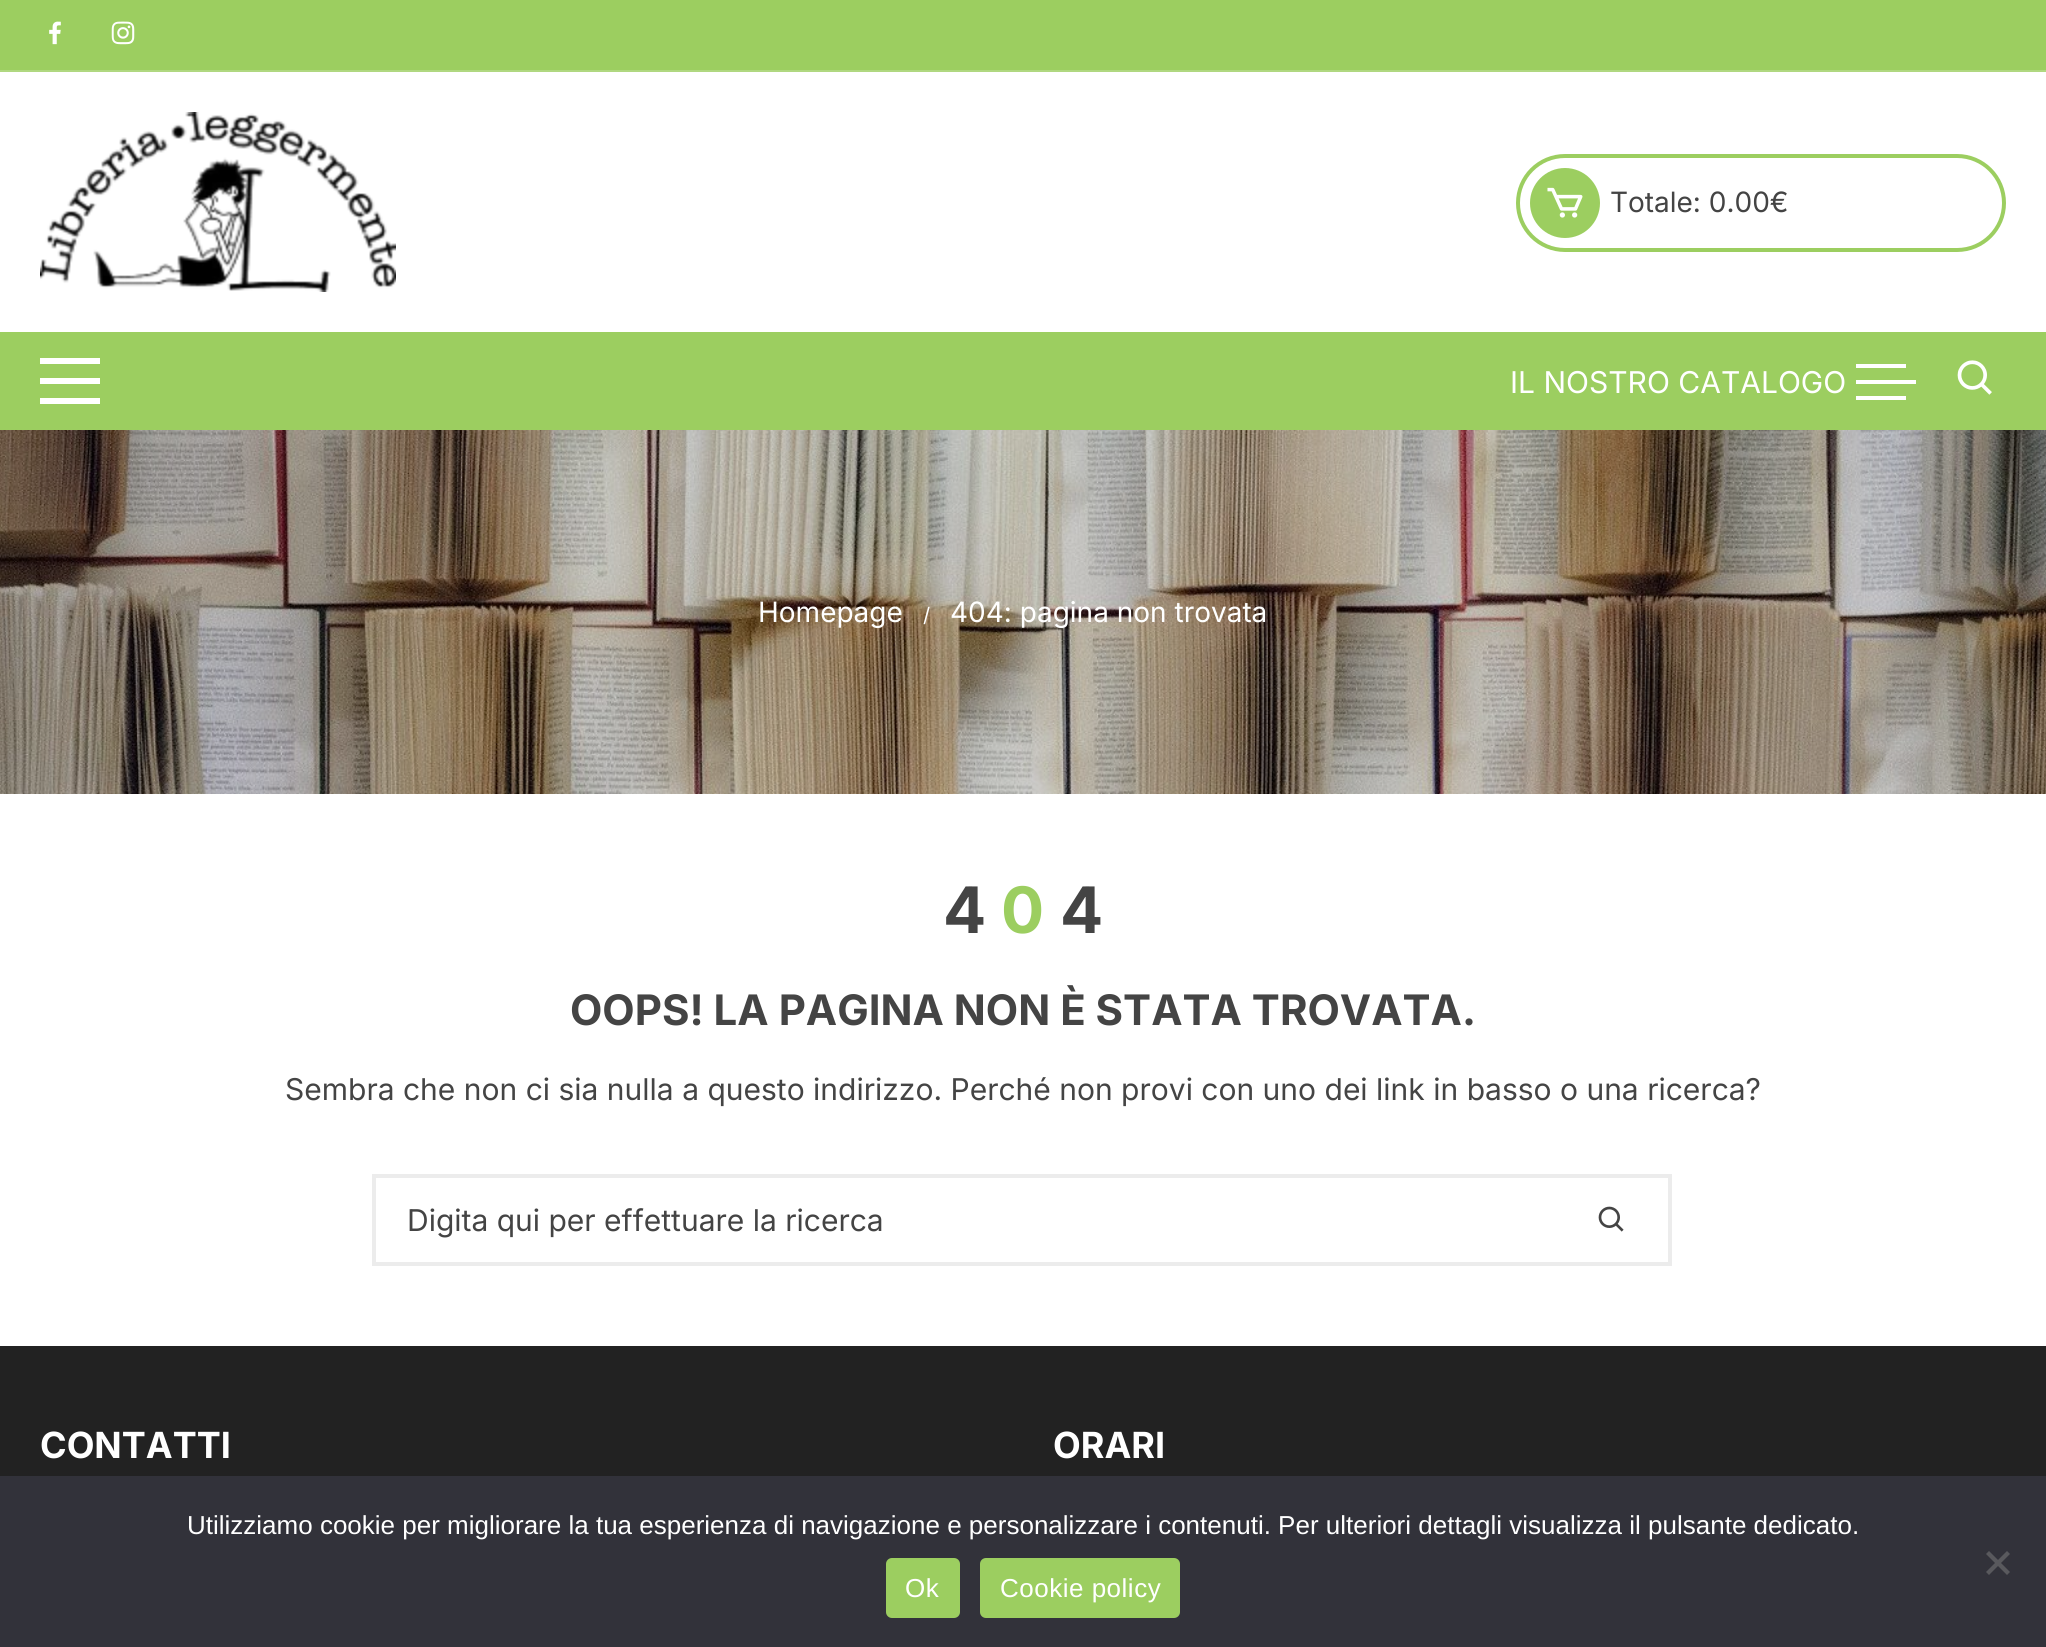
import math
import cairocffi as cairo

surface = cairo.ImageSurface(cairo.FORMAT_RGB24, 2046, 1647)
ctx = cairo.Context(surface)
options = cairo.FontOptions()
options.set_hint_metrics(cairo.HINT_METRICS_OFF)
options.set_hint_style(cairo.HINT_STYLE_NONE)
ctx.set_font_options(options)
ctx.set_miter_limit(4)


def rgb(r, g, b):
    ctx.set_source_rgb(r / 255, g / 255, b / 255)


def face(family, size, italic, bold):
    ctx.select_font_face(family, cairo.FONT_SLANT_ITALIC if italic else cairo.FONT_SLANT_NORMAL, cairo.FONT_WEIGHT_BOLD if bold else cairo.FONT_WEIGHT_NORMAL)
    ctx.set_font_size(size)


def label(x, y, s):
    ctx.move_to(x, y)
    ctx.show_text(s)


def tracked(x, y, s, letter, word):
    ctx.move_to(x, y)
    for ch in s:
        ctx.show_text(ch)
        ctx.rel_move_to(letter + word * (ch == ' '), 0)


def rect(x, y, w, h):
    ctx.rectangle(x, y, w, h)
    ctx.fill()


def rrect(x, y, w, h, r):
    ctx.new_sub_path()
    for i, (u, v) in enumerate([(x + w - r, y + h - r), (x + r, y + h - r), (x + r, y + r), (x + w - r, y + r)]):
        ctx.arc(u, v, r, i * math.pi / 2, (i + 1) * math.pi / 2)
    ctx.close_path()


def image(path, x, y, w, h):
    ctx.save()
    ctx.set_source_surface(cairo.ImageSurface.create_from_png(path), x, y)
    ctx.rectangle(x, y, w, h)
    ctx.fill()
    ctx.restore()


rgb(255, 255, 255)
ctx.paint()
rgb(156, 206, 96)
rect(0, 0, 2046, 70)
rgb(176, 216, 128)
rect(0, 70, 2046, 2)
image('image0.png', 49, 21, 12, 24)
image('image1.png', 111, 21, 24, 24)
image('image2.png', 40, 112, 356, 180)
rrect(1518, 156, 486, 94, 47)
rgb(156, 206, 96)
ctx.set_line_width(4)
ctx.stroke()
ctx.arc(1565, 203, 35, 0, 2 * math.pi)
ctx.fill()
image('image3.png', 1547, 187, 36, 31)
face('Inter', 28, 0, 0)
rgb(68, 68, 68)
label(1610, 212, 'Totale: 0.00€')
rgb(156, 206, 96)
rect(0, 332, 2046, 98)
rgb(255, 255, 255)
rect(40, 358, 60, 6)
rect(40, 378, 60, 6)
rect(40, 398, 60, 6)
face('Inter', 30, 0, 0)
label(1510, 393, 'IL NOSTRO CATALOGO')
rect(1856, 364, 50, 4)
rect(1856, 380, 60, 4)
rect(1856, 396, 50, 4)
image('image4.png', 1957, 360, 35, 35)
image('image5.png', 0, 430, 2046, 364)
face('Inter', 28, 0, 0)
label(758, 622, 'Homepage')
face('Inter', 20, 0, 0)
label(923, 622, '/')
face('Inter', 28, 0, 0)
label(950, 622, '404: pagina non trovata')
face('Inter', 64, 0, 1)
rgb(68, 68, 68)
label(943, 933, '4')
rgb(156, 206, 96)
label(1001, 933, '0')
rgb(68, 68, 68)
label(1060, 933, '4')
face('Inter', 42, 0, 1)
label(570, 1025, 'OOPS! LA PAGINA NON È STATA TROVATA.')
face('Inter', 30, 0, 0)
label(285, 1100, 'Sembra che non ci sia nulla a questo indirizzo. Perché non provi con uno dei link in basso o una ricerca?')
ctx.rectangle(374, 1176, 1296, 88)
rgb(236, 236, 236)
ctx.stroke()
rgb(68, 68, 68)
label(407, 1231, 'Digita qui per effettuare la ricerca')
image('image6.png', 1598, 1206, 26, 26)
rgb(34, 34, 34)
rect(0, 1346, 2046, 130)
face('Inter', 36, 0, 1)
rgb(255, 255, 255)
label(40, 1458, 'CONTATTI')
label(1053, 1458, 'ORARI')
rgb(50, 50, 58)
rect(0, 1476, 2046, 171)
face('Liberation Sans', 26, 0, 0)
rgb(255, 255, 255)
label(187, 1534, 'Utilizziamo cookie per migliorare la tua esperienza di navigazione e personalizzare i contenuti. Per ulteriori dettagli visualizza il pulsante dedicato.')
rgb(89, 89, 93)
ctx.new_path()
ctx.move_to(2007, 1551)
ctx.line_to(2010, 1554)
ctx.line_to(1989, 1575)
ctx.line_to(1986, 1572)
ctx.close_path()
ctx.fill()
ctx.new_path()
ctx.move_to(1986, 1554)
ctx.line_to(1989, 1551)
ctx.line_to(2010, 1572)
ctx.line_to(2007, 1575)
ctx.close_path()
ctx.fill()
rgb(156, 206, 96)
rrect(886, 1558, 74, 60, 6)
ctx.fill()
rgb(255, 255, 255)
tracked(905, 1597, 'Ok', 0.5, 0)
rgb(156, 206, 96)
rrect(980, 1558, 200, 60, 6)
ctx.fill()
rgb(255, 255, 255)
tracked(1000, 1597, 'Cookie policy', 0.5, 0)
surface.write_to_png('render.png')
